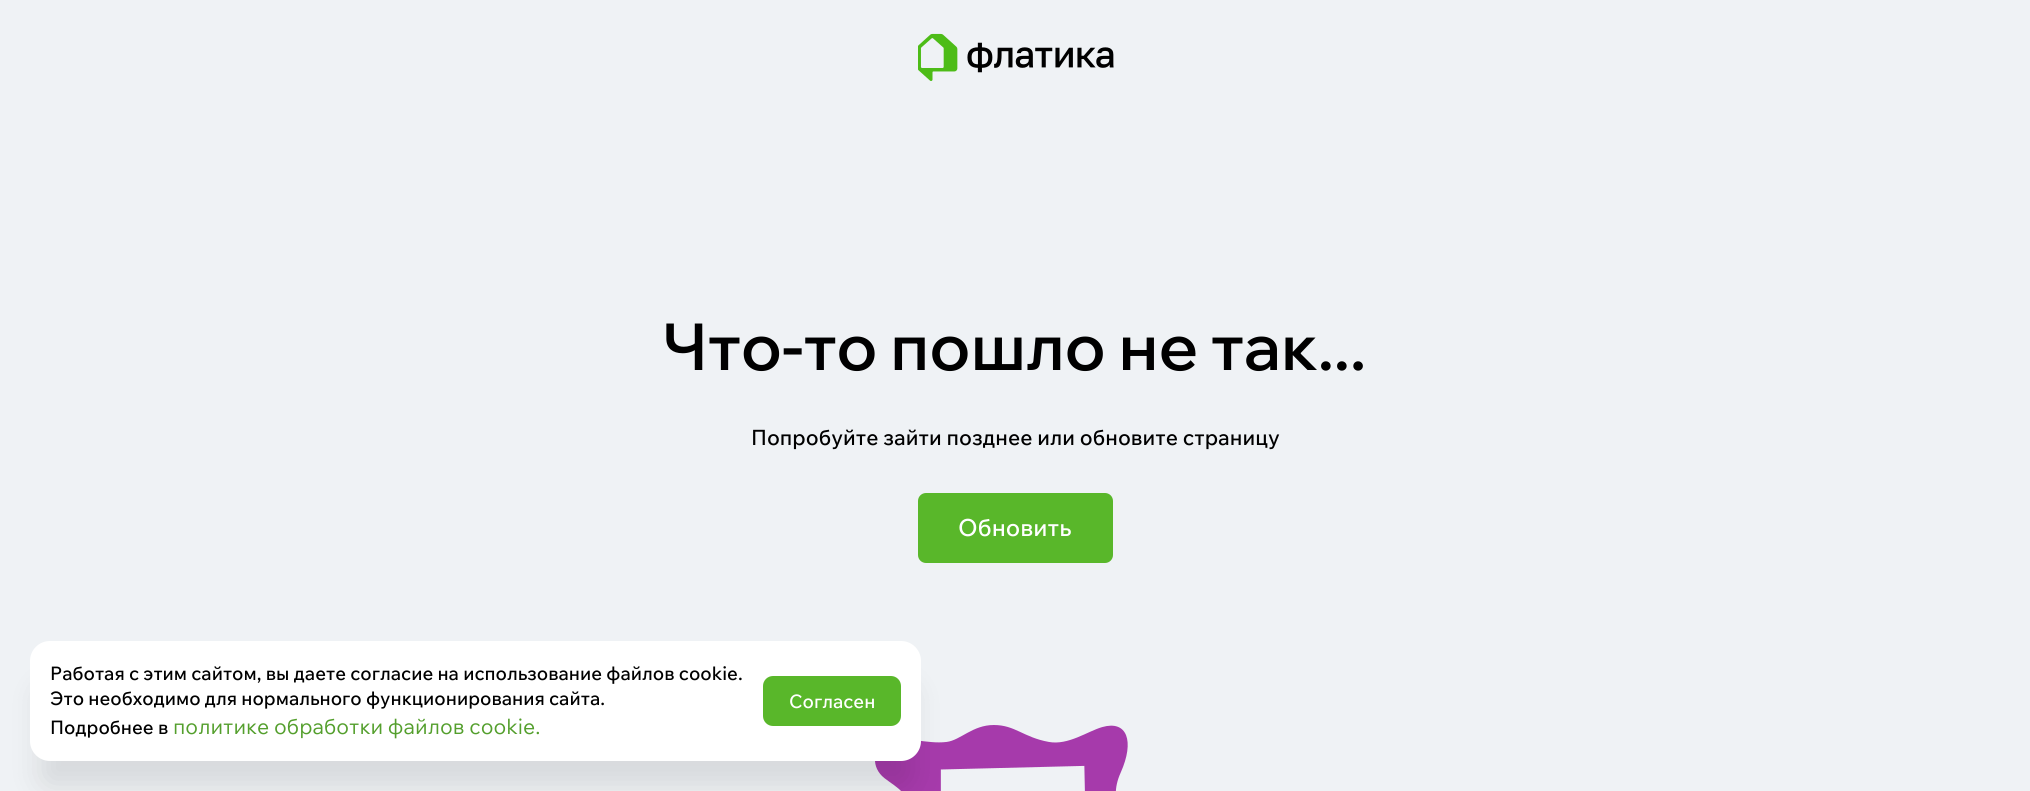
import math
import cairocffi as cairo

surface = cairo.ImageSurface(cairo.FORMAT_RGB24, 2030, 791)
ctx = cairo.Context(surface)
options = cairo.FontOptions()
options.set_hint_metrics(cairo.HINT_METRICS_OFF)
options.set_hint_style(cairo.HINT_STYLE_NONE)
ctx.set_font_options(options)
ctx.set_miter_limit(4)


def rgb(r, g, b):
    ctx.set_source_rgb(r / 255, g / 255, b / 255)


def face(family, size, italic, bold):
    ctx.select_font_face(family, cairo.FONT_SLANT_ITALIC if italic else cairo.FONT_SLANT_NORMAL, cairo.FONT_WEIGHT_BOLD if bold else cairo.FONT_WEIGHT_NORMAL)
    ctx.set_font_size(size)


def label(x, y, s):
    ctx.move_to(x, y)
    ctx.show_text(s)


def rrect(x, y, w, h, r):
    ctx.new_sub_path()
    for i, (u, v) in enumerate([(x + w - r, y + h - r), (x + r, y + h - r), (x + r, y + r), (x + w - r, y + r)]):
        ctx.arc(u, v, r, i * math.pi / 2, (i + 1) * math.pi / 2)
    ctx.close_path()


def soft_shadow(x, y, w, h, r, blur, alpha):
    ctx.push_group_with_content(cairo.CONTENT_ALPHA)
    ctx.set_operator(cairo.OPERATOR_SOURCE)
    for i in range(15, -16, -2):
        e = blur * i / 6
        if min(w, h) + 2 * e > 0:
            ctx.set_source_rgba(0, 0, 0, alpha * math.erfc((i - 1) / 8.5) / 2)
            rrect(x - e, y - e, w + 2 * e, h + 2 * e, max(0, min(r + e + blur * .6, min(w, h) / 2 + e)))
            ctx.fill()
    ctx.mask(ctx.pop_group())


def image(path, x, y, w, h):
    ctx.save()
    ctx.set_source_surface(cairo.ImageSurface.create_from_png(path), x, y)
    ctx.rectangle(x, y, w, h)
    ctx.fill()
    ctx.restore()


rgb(239, 242, 245)
ctx.paint()
image('image0.png', 918, 33, 196, 48)
face('Wix Madefor Display SemiBold', 65, 0, 0)
rgb(0, 0, 0)
label(663, 370, 'Что-то пошло не так...')
face('Wix Madefor Text Medium', 21.25, 0, 0)
label(751, 445, 'Попробуйте зайти позднее или обновите страницу')
rgb(89, 183, 42)
rrect(918, 493, 195, 70, 8)
ctx.fill()
face('Wix Madefor Text Medium', 23.75, 0, 0)
rgb(255, 255, 255)
label(958, 536, 'Обновить')
image('image1.png', 875, 725, 253, 66)
rgb(0, 0, 0)
soft_shadow(39, 685, 874, 103, 11, 14.5, 0.1)
rgb(255, 255, 255)
rrect(30, 641, 891, 120, 20)
ctx.fill()
face('Wix Madefor Text Medium', 18.75, 0, 0)
rgb(0, 0, 0)
label(50, 680, 'Работая с этим сайтом, вы даете согласие на использование файлов cookie.')
label(50, 705, 'Это необходимо для нормального функционирования сайта.')
label(50, 734, 'Подробнее в')
face('Wix Madefor Text', 21.25, 0, 0)
rgb(84, 159, 45)
label(173, 734, 'политике обработки файлов cookie.')
rgb(89, 183, 42)
rrect(763, 676, 138, 50, 10)
ctx.fill()
face('Wix Madefor Text Medium', 18.75, 0, 0)
rgb(255, 255, 255)
label(789, 708, 'Согласен')
surface.write_to_png('render.png')
